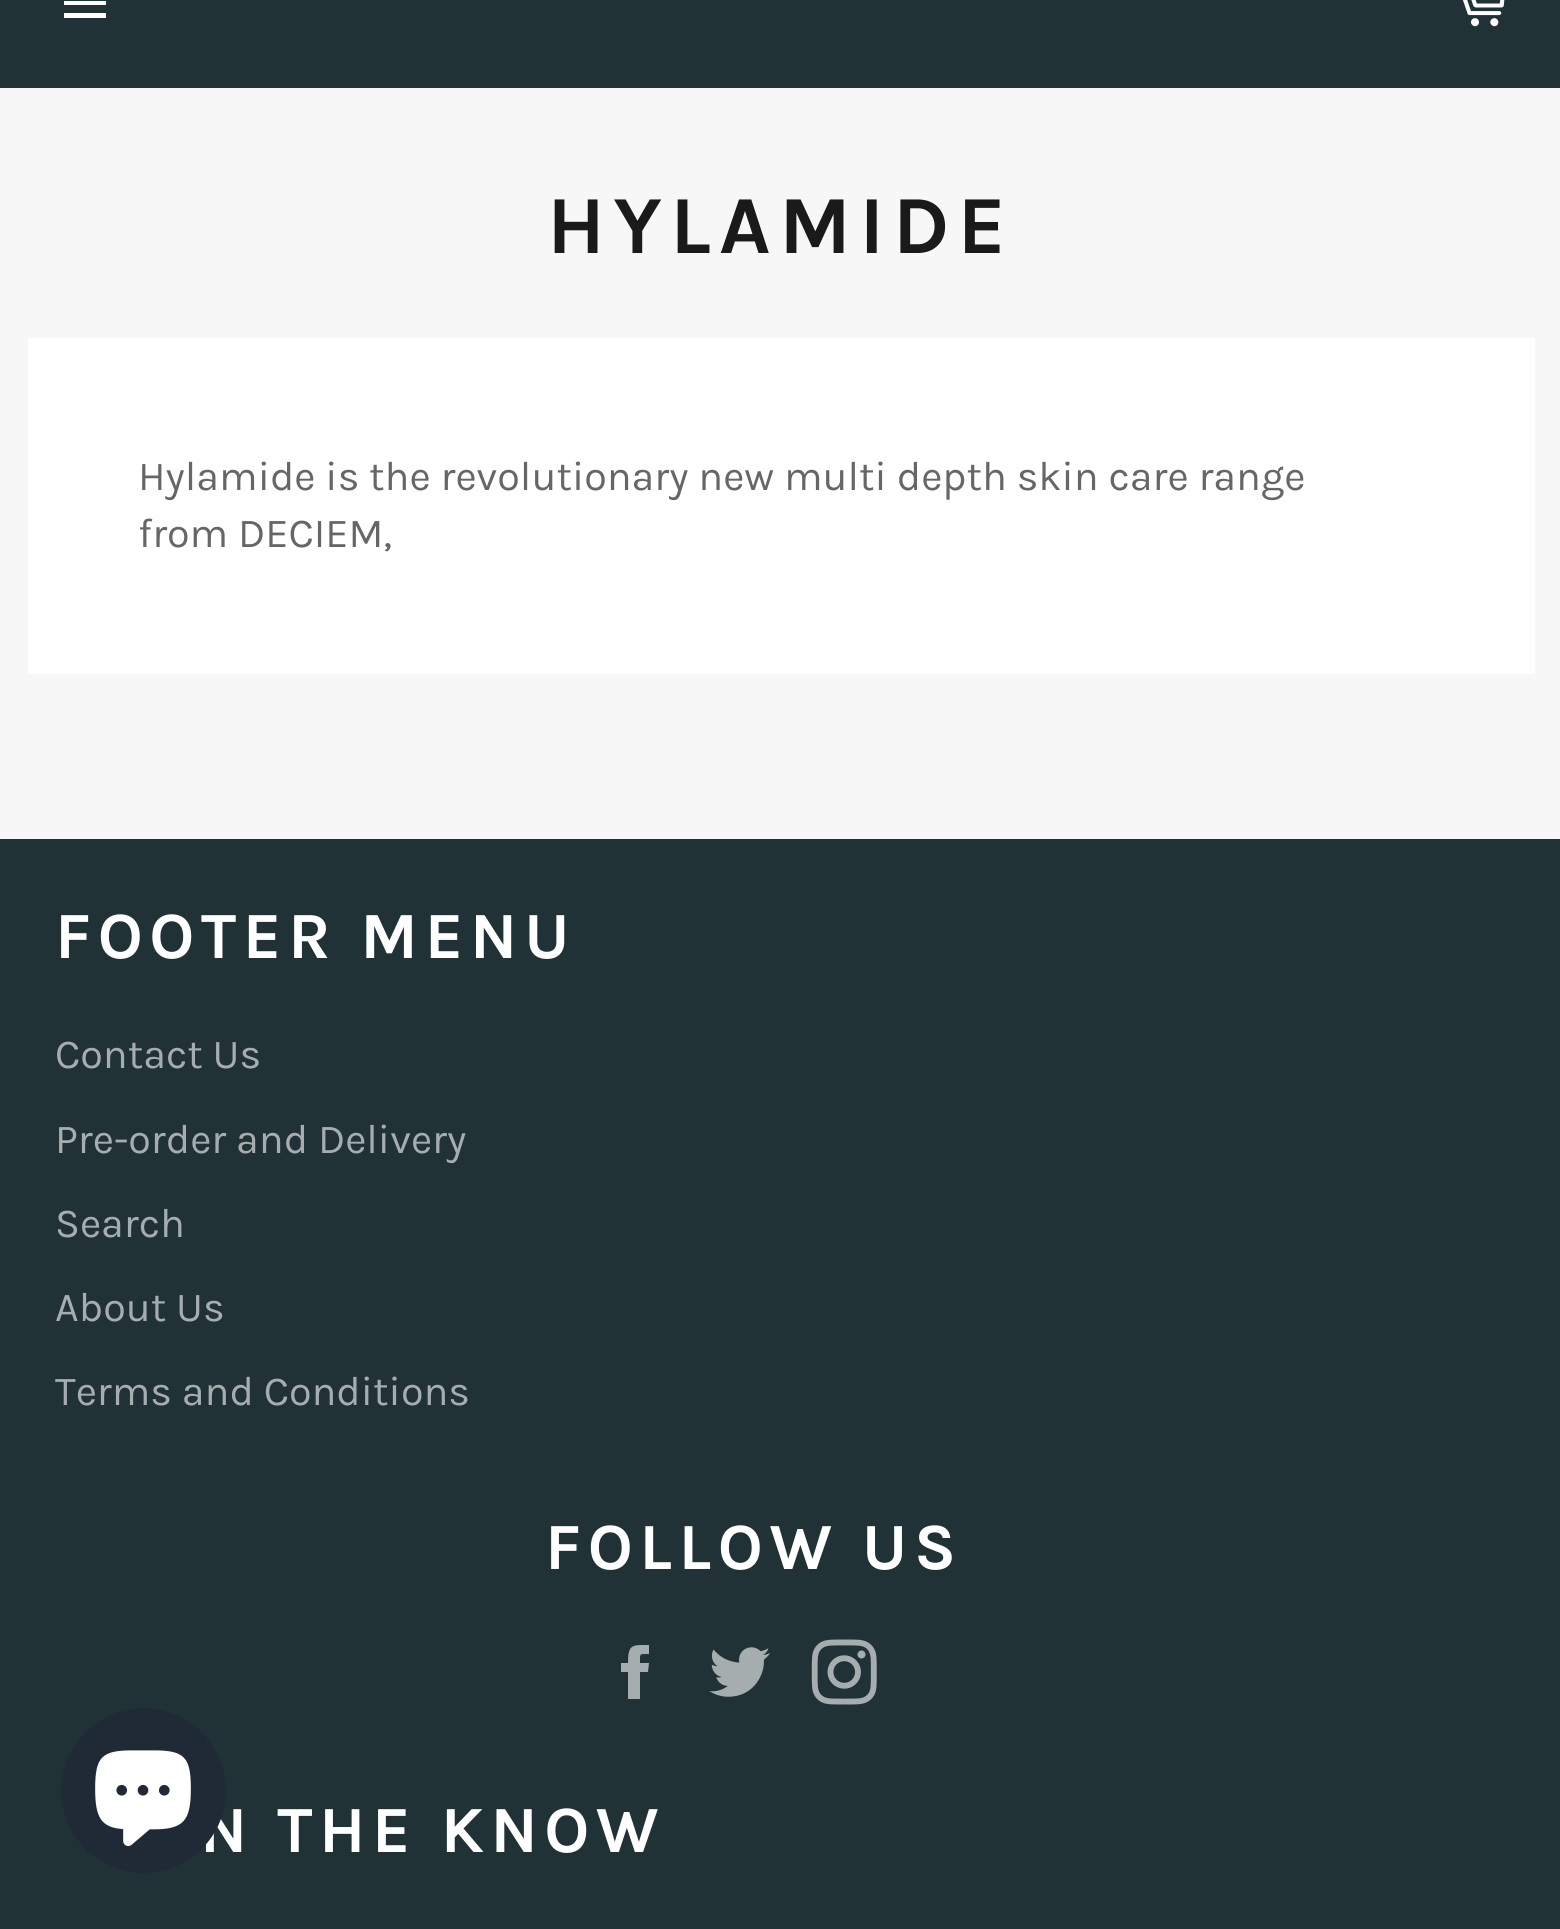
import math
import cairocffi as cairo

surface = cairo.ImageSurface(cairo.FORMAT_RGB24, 1560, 1929)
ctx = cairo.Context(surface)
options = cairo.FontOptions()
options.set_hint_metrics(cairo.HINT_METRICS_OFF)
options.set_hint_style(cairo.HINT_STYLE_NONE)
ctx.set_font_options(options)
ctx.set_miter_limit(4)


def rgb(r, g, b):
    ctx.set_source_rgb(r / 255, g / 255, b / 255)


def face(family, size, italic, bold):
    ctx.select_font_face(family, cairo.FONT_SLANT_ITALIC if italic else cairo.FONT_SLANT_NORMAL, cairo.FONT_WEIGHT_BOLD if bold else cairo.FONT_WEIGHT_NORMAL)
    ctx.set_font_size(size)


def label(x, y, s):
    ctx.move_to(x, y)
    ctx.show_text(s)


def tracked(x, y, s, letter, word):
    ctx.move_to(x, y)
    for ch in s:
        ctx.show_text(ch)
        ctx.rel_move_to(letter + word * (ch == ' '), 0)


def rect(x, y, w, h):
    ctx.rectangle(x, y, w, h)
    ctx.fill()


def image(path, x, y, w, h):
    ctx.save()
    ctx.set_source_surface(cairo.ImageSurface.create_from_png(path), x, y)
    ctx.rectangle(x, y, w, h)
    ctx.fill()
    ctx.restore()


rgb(247, 247, 247)
ctx.paint()
rgb(33, 50, 54)
rect(0, 0, 1560, 88)
rgb(255, 255, 255)
ctx.new_path()
ctx.move_to(64, 1)
ctx.line_to(106, 1)
ctx.line_to(106, 5)
ctx.line_to(64, 5)
ctx.close_path()
ctx.move_to(64, -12)
ctx.line_to(106, -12)
ctx.line_to(106, -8)
ctx.line_to(64, -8)
ctx.close_path()
ctx.move_to(64, 13)
ctx.line_to(106, 13)
ctx.line_to(106, 18)
ctx.line_to(64, 18)
ctx.close_path()
ctx.fill()
image('image0.png', 1463, 0, 42, 27)
face('Karla', 82.5, 0, 1)
rgb(26, 26, 26)
tracked(547, 253, 'HYLAMIDE', 8.25, 0)
rgb(255, 255, 255)
rect(28, 338, 1507, 336)
face('Karla', 41.25, 0, 0)
rgb(102, 102, 102)
label(138, 490, 'Hylamide is the revolutionary new multi depth skin care range')
label(138, 547, 'from DECIEM,')
rgb(33, 50, 54)
rect(0, 839, 1560, 1090)
face('Karla', 66, 0, 1)
rgb(255, 255, 255)
tracked(55, 958, 'FOOTER MENU', 6.6, 0)
face('Karla', 41.25, 0, 0)
rgb(166, 173, 175)
label(55, 1068, 'Contact Us')
label(55, 1153, 'Pre-order and Delivery')
label(55, 1237, 'Search')
label(55, 1321, 'About Us')
label(55, 1405, 'Terms and Conditions')
face('Karla', 66, 0, 1)
rgb(255, 255, 255)
tracked(545, 1569, 'FOLLOW US', 6.6, 0)
rgb(166, 173, 175)
ctx.new_path()
ctx.move_to(640, 1663)
ctx.curve_to(640, 1653, 639, 1654, 649, 1654)
ctx.line_to(649, 1645)
ctx.curve_to(632, 1645, 628, 1644, 628, 1663)
ctx.line_to(621, 1663)
ctx.line_to(621, 1672)
ctx.line_to(628, 1672)
ctx.line_to(628, 1699)
ctx.line_to(640, 1699)
ctx.line_to(640, 1672)
ctx.line_to(648, 1672)
ctx.line_to(649, 1663)
ctx.close_path()
ctx.fill()
image('image1.png', 709, 1647, 61, 50)
image('image2.png', 811, 1639, 66, 66)
rgb(255, 255, 255)
tracked(200, 1852, 'N THE KNOW', 6.6, 0)
rgb(32, 42, 54)
ctx.new_path()
ctx.arc(143.5, 1790.5, 82.5, 0, 2 * math.pi)
ctx.fill()
image('image3.png', 95, 1750, 96, 97)
surface.write_to_png('render.png')
